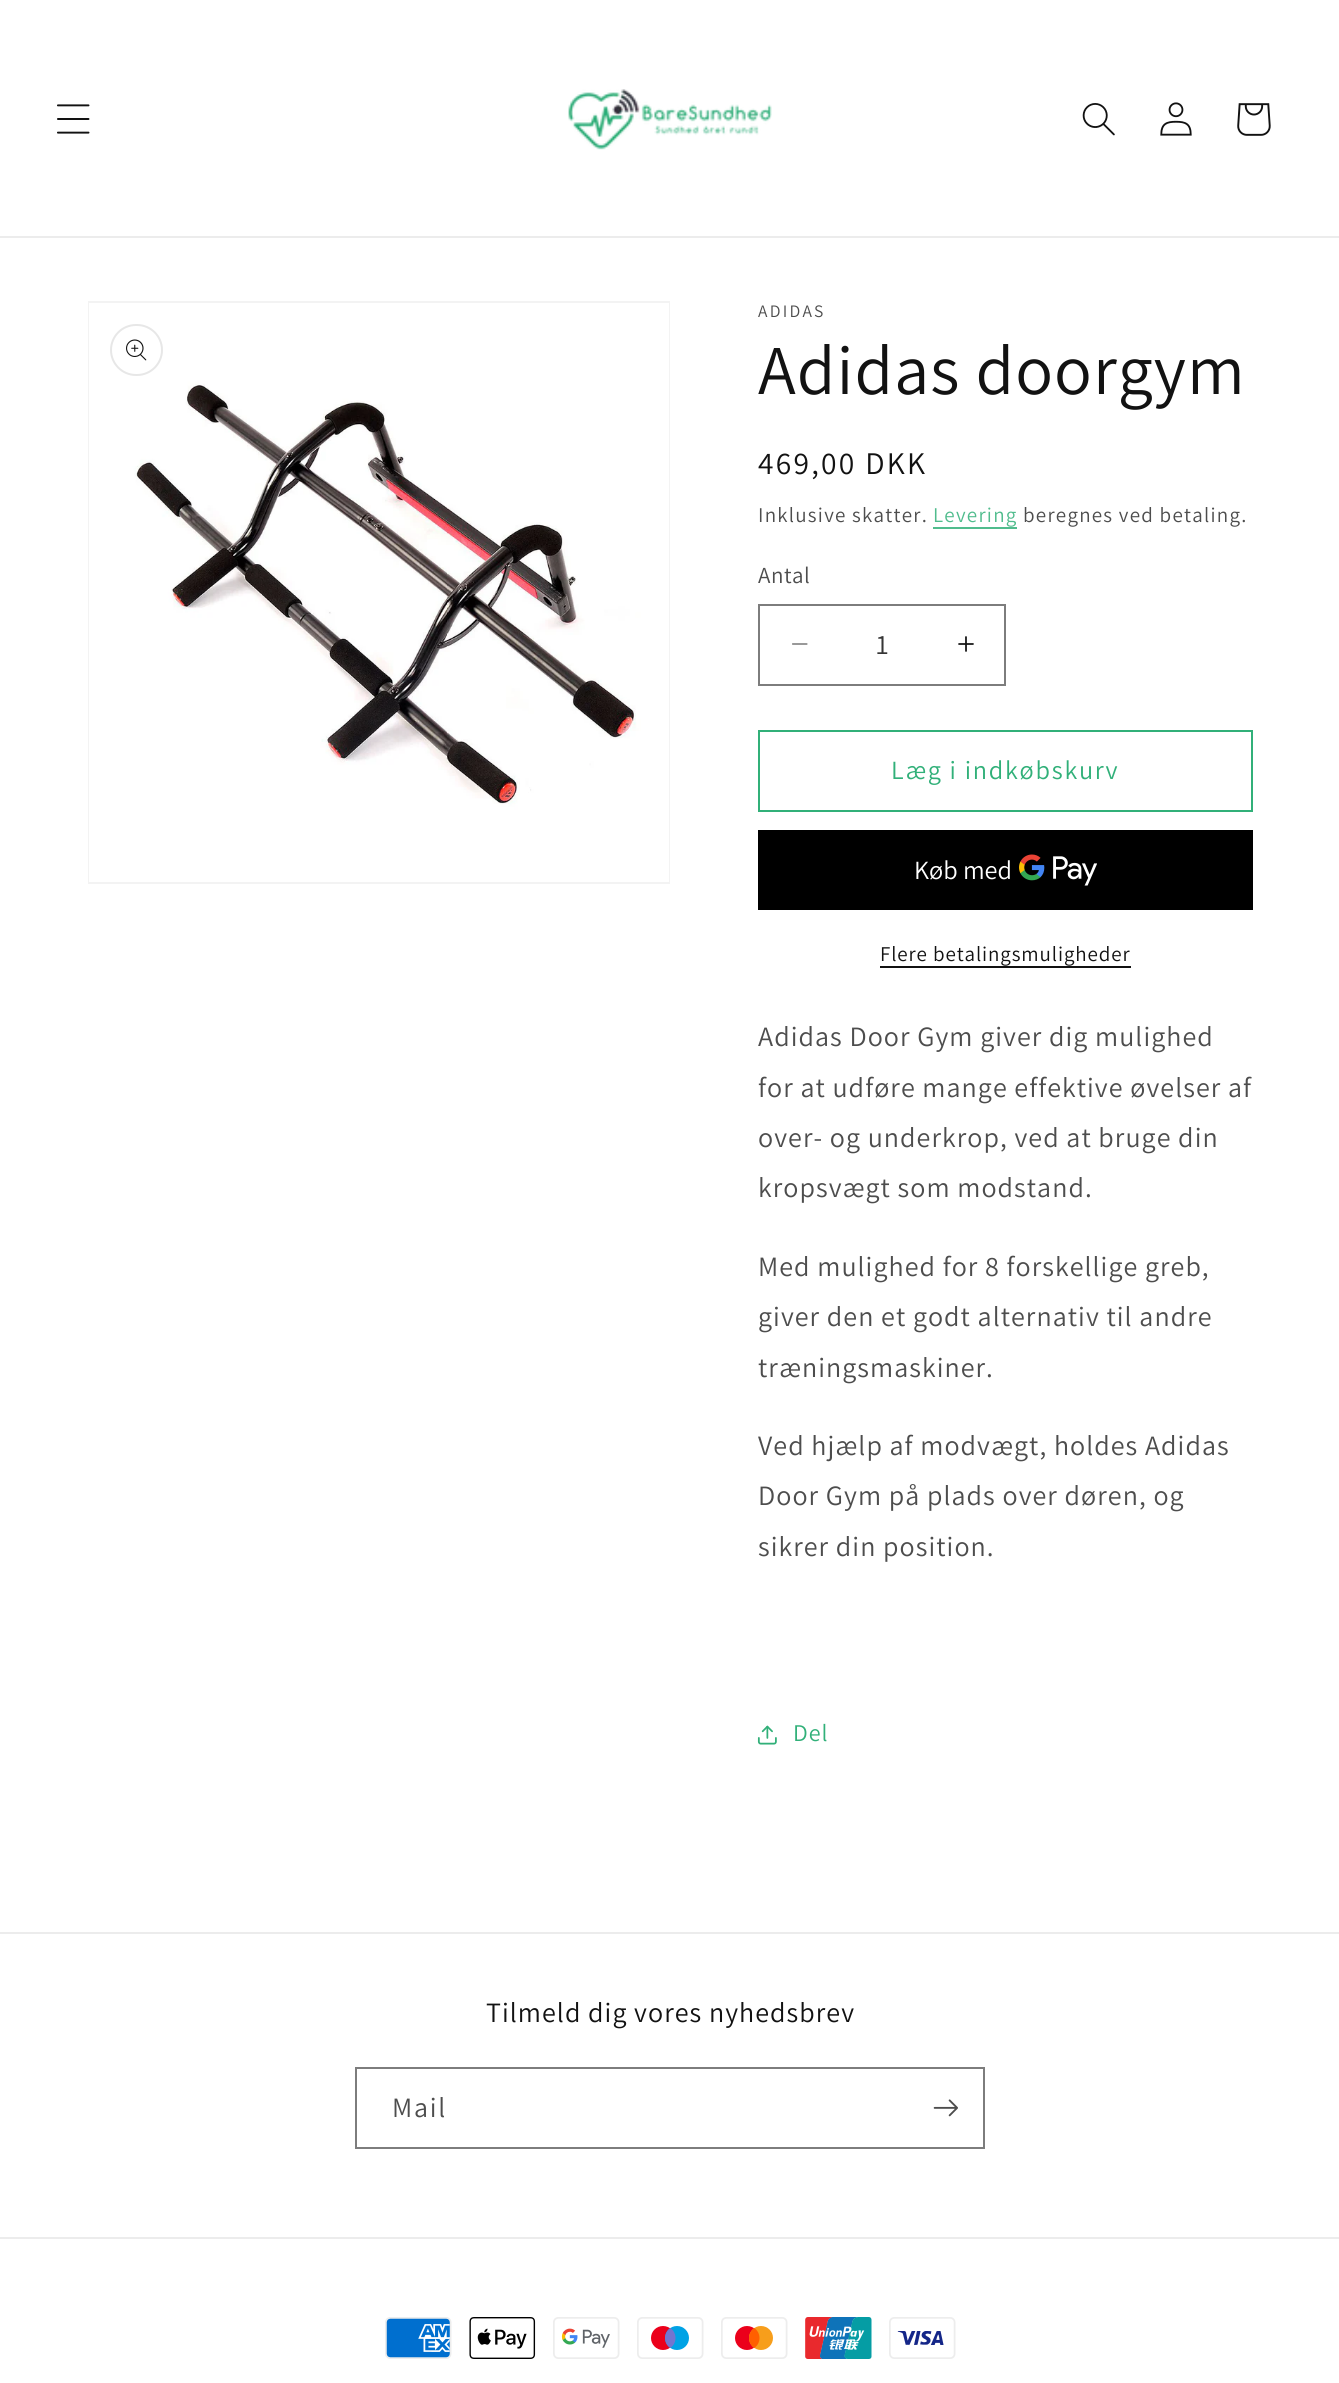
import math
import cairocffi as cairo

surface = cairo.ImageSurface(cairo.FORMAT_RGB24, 1339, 2383)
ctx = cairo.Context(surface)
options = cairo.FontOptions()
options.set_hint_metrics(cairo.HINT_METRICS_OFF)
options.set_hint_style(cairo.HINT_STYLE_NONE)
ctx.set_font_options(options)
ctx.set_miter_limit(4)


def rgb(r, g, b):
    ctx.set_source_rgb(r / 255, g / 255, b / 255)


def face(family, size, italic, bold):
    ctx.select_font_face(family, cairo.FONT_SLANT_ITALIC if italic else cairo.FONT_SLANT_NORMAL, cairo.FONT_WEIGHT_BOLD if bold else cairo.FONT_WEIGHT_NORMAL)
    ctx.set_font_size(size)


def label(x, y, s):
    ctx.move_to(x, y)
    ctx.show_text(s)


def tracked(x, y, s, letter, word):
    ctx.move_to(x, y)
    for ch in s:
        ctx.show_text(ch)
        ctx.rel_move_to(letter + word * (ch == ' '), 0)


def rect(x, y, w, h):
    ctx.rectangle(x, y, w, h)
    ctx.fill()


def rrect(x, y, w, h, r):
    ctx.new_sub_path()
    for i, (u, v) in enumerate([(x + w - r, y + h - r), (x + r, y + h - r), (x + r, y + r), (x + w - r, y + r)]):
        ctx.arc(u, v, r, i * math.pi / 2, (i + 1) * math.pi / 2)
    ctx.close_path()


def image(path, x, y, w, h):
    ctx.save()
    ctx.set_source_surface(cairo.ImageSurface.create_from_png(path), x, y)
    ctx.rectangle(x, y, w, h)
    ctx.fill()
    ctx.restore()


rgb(255, 255, 255)
ctx.paint()
rgb(236, 236, 236)
rect(0, 236, 1339, 2)
image('image0.png', 57, 104, 33, 30)
image('image1.png', 568, 89, 204, 61)
image('image2.png', 1082, 103, 33, 33)
image('image3.png', 1160, 102, 32, 34)
image('image4.png', 1237, 103, 34, 33)
ctx.rectangle(89, 302, 580, 581)
rgb(243, 243, 243)
ctx.stroke()
image('image5.png', 89, 303, 580, 579)
rrect(111, 325, 51, 50, 25)
rgb(231, 231, 231)
ctx.stroke()
image('image6.png', 126, 339, 21, 22)
face('Assistant', 17.5, 0, 0)
rgb(77, 77, 77)
tracked(758, 317, 'ADIDAS', 2.25, 0)
face('Assistant', 70, 0, 0)
rgb(18, 18, 18)
tracked(758, 394, 'Adidas doorgym', 1.05, 0)
face('Assistant', 31.5, 0, 0)
tracked(758, 474, '469,00 DKK', 2.25, 0)
face('Assistant', 21, 0, 0)
rgb(77, 77, 77)
tracked(758, 522, 'Inklusive skatter.', 1.25, 0)
rgb(80, 188, 141)
tracked(933, 522, 'Levering', 1.25, 0)
rect(933, 527, 84, 2)
rgb(77, 77, 77)
tracked(1023, 522, 'beregnes ved betaling.', 1.25, 0)
face('Assistant', 23, 0, 0)
tracked(758, 583, 'Antal', 0.5, 0)
image('image7.png', 792, 643, 16, 2)
image('image8.png', 958, 636, 16, 16)
ctx.rectangle(759, 605, 246, 80)
rgb(125, 125, 125)
ctx.stroke()
face('Assistant', 28, 0, 0)
rgb(54, 54, 54)
label(876, 654, '1')
ctx.rectangle(759, 731, 493, 80)
rgb(49, 176, 121)
ctx.stroke()
face('Assistant', 26.25, 0, 0)
tracked(891, 779, 'Læg i indkøbskurv', 1.75, 0)
rgb(0, 0, 0)
rect(758, 830, 495, 80)
rgb(255, 255, 255)
label(914, 879, 'Køb med')
image('image9.png', 1019, 854, 78, 32)
face('Assistant', 21, 0, 0)
rgb(18, 18, 18)
tracked(880, 961, 'Flere betalingsmuligheder', 0.9, 0)
rect(880, 966, 251, 2)
face('Assistant', 28, 0, 0)
rgb(77, 77, 77)
tracked(758, 1046, 'Adidas Door Gym giver dig mulighed', 1.05, 0)
tracked(758, 1097, 'for at udføre mange effektive øvelser af', 1.05, 0)
tracked(758, 1147, 'over- og underkrop, ved at bruge din', 1.05, 0)
tracked(758, 1197, 'kropsvægt som modstand.', 1.05, 0)
tracked(758, 1276, 'Med mulighed for 8 forskellige greb,', 1.05, 0)
tracked(758, 1326, 'giver den et godt alternativ til andre', 1.05, 0)
tracked(758, 1377, 'træningsmaskiner.', 1.05, 0)
tracked(758, 1455, 'Ved hjælp af modvægt, holdes Adidas', 1.05, 0)
tracked(758, 1505, 'Door Gym på plads over døren, og', 1.05, 0)
tracked(758, 1556, 'sikrer din position.', 1.05, 0)
image('image10.png', 757, 1725, 20, 20)
face('Assistant', 24, 0, 0)
rgb(49, 176, 121)
tracked(793, 1741, 'Del', 1.05, 0)
rgb(236, 236, 236)
rect(0, 1932, 1339, 2)
face('Assistant', 28, 0, 0)
rgb(18, 18, 18)
tracked(486, 2022, 'Tilmeld dig vores nyhedsbrev', 1.05, 0)
ctx.rectangle(356, 2068, 628, 80)
rgb(125, 125, 125)
ctx.stroke()
rgb(77, 77, 77)
tracked(392, 2117, 'Mail', 1.75, 0)
image('image11.png', 933, 2099, 25, 18)
rgb(236, 236, 236)
rect(0, 2237, 1339, 2)
image('image12.png', 385, 2317, 67, 42)
image('image13.png', 469, 2317, 67, 42)
image('image14.png', 553, 2317, 67, 42)
image('image15.png', 637, 2317, 67, 42)
image('image16.png', 721, 2317, 67, 42)
image('image17.png', 805, 2317, 67, 42)
image('image18.png', 889, 2317, 67, 42)
surface.write_to_png('render.png')
